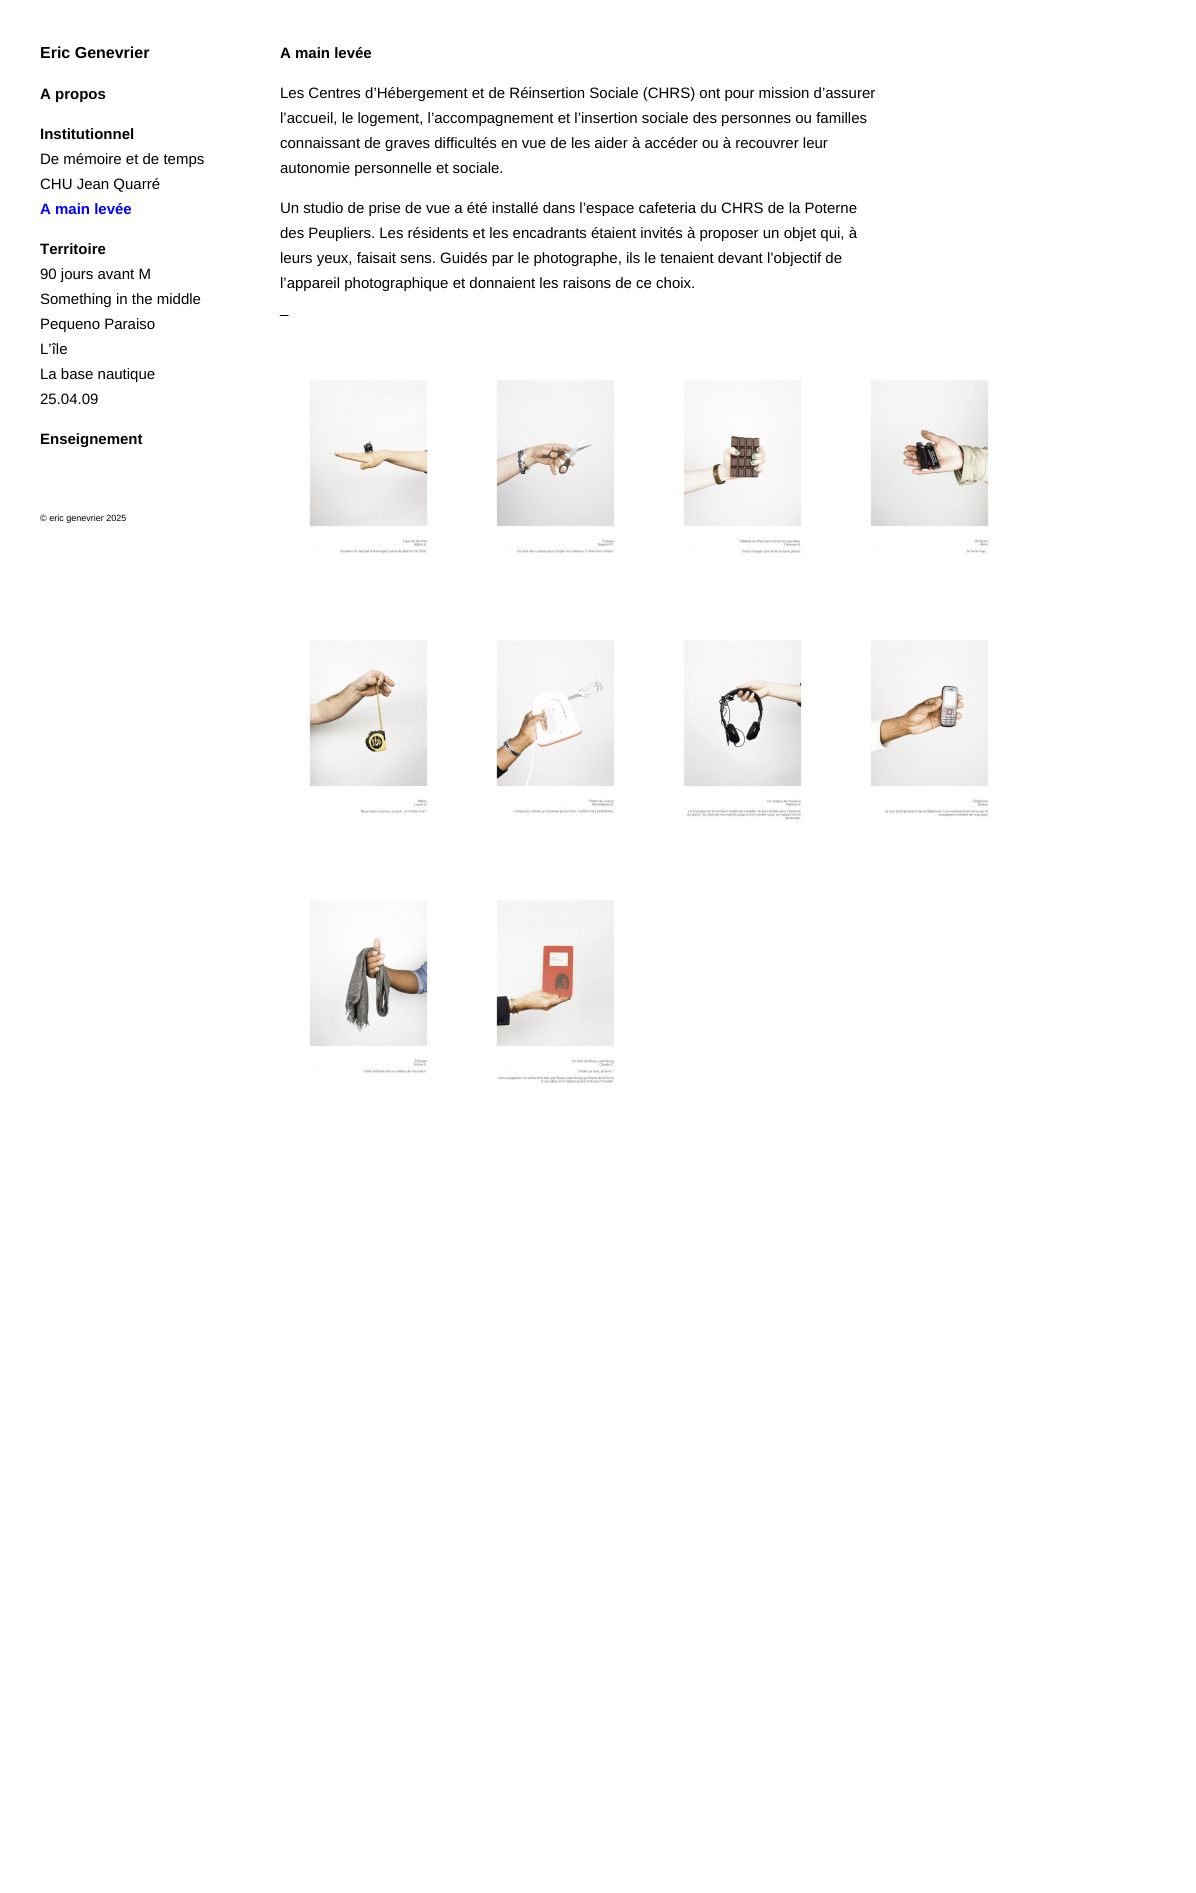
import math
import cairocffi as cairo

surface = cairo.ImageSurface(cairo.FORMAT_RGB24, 1196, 1893)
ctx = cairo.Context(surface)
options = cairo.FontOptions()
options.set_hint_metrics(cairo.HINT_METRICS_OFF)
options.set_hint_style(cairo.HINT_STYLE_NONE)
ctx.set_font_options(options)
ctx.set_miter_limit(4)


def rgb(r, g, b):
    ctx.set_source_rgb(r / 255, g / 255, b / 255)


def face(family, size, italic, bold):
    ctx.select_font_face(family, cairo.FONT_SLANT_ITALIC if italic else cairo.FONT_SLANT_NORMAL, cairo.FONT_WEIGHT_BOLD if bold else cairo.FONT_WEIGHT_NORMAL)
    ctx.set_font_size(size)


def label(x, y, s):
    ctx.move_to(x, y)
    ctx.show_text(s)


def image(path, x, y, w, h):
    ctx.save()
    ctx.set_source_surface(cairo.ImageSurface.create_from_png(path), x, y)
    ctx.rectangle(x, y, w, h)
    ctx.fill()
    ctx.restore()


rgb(255, 255, 255)
ctx.paint()
face('Liberation Sans', 16, 0, 1)
rgb(0, 0, 0)
label(40, 58, 'Eric Genevrier')
face('Liberation Sans', 15, 0, 1)
label(40, 99, 'A propos')
label(40, 139, 'Institutionnel')
face('Liberation Sans', 15, 0, 0)
label(40, 164, 'De mémoire et de temps')
label(40, 189, 'CHU Jean Quarré')
face('Liberation Sans', 15, 0, 1)
rgb(0, 0, 255)
label(40, 214, 'A main levée')
rgb(0, 0, 0)
label(40, 254, 'Territoire')
face('Liberation Sans', 15, 0, 0)
label(40, 279, '90 jours avant M')
label(40, 304, 'Something in the middle')
label(40, 329, 'Pequeno Paraiso')
label(40, 354, 'L’île')
label(40, 379, 'La base nautique')
label(40, 404, '25.04.09')
face('Liberation Sans', 15, 0, 1)
label(40, 444, 'Enseignement')
face('Liberation Sans', 9, 0, 0)
label(40, 521, '© eric genevrier 2025')
face('Liberation Sans', 15, 0, 1)
label(280, 58, 'A main levée')
face('Liberation Sans', 15, 0, 0)
label(280, 98, 'Les Centres d’Hébergement et de Réinsertion Sociale (CHRS) ont pour mission d’assurer')
label(280, 123, 'l’accueil, le logement, l’accompagnement et l’insertion sociale des personnes ou familles')
label(280, 148, 'connaissant de graves difficultés en vue de les aider à accéder ou à recouvrer leur')
label(280, 173, 'autonomie personnelle et sociale.')
label(280, 213, 'Un studio de prise de vue a été installé dans l’espace cafeteria du CHRS de la Poterne')
label(280, 238, 'des Peupliers. Les résidents et les encadrants étaient invités à proposer un objet qui, à')
label(280, 263, 'leurs yeux, faisait sens. Guidés par le photographe, ils le tenaient devant l’objectif de')
label(280, 288, 'l’appareil photographique et donnaient les raisons de ce choix.')
label(280, 313, '_')
image('image0.png', 309, 380, 119, 174)
image('image1.png', 495, 380, 120, 174)
image('image2.png', 683, 380, 119, 174)
image('image3.png', 870, 380, 122, 174)
image('image4.png', 305, 640, 123, 175)
image('image5.png', 493, 640, 122, 174)
image('image6.png', 683, 640, 122, 180)
image('image7.png', 870, 640, 119, 177)
image('image8.png', 309, 900, 121, 174)
image('image9.png', 496, 900, 119, 184)
surface.write_to_png('render.png')
